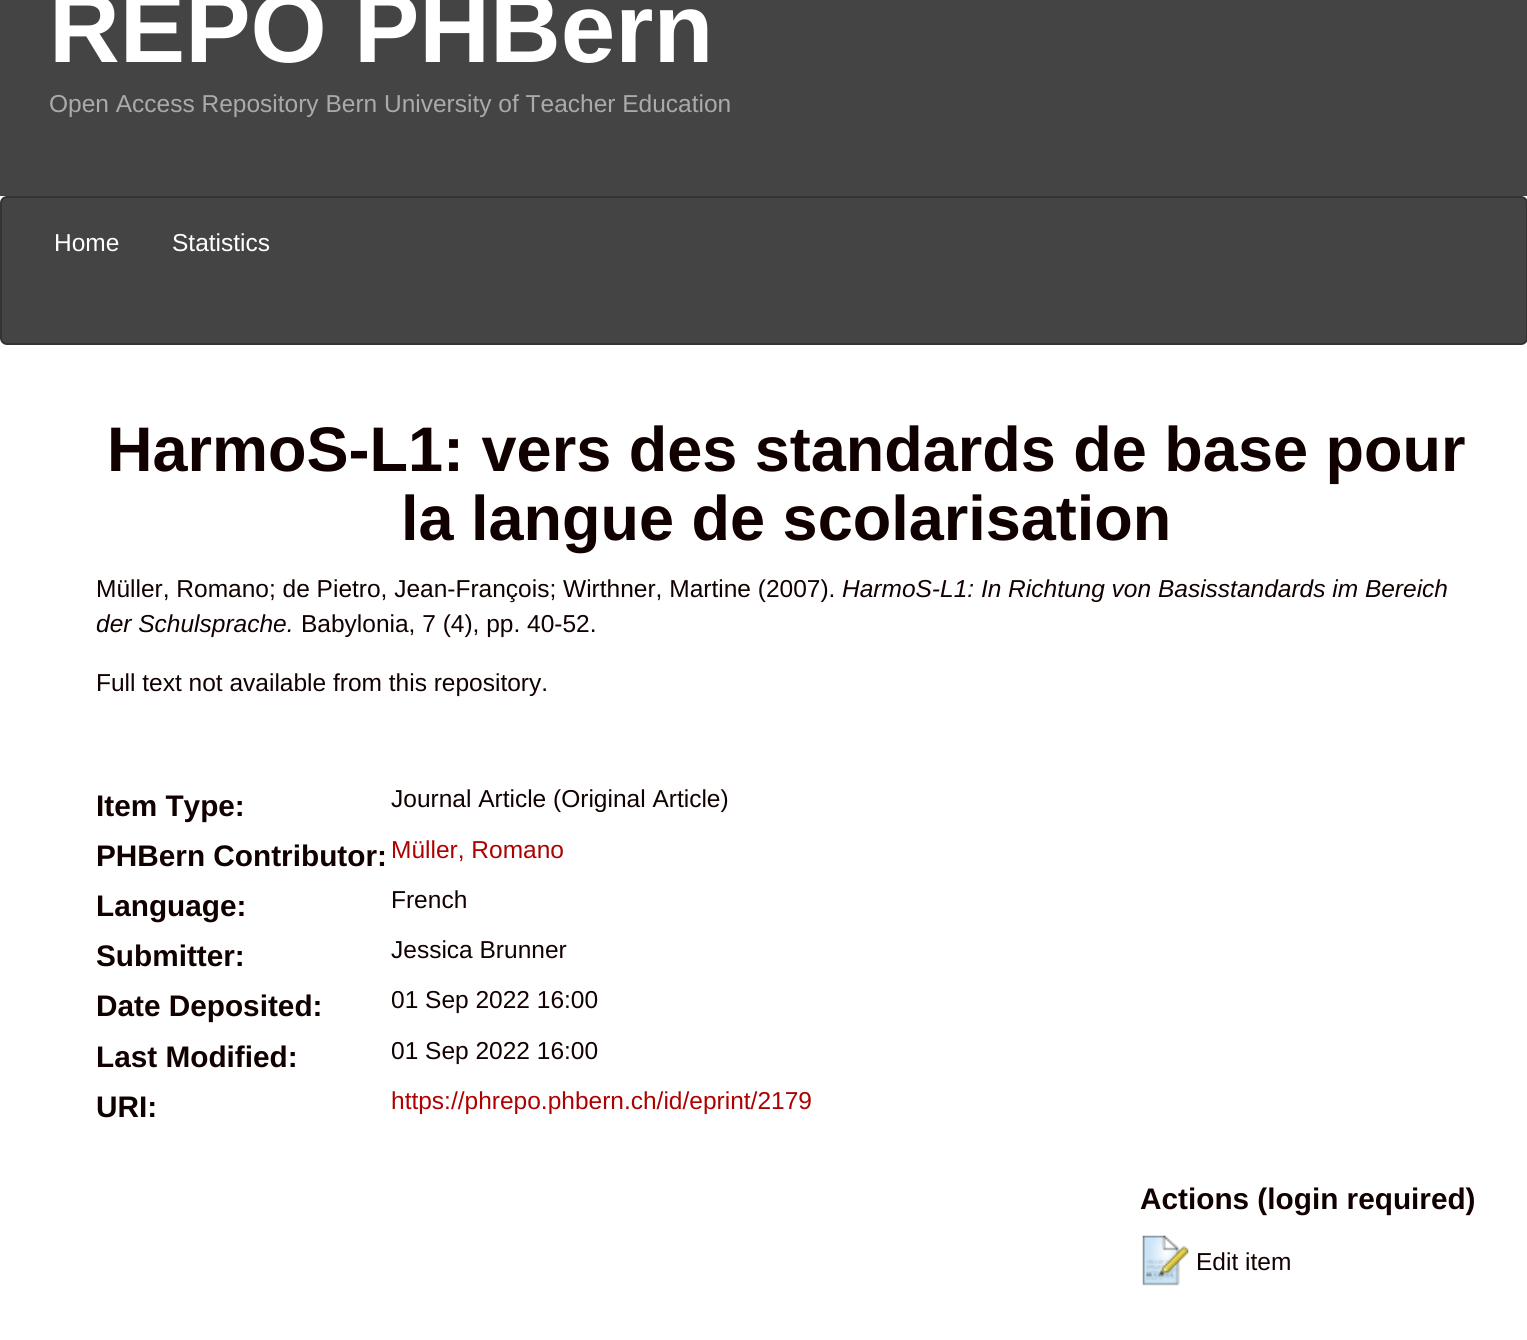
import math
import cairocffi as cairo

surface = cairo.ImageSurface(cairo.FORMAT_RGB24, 1527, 1340)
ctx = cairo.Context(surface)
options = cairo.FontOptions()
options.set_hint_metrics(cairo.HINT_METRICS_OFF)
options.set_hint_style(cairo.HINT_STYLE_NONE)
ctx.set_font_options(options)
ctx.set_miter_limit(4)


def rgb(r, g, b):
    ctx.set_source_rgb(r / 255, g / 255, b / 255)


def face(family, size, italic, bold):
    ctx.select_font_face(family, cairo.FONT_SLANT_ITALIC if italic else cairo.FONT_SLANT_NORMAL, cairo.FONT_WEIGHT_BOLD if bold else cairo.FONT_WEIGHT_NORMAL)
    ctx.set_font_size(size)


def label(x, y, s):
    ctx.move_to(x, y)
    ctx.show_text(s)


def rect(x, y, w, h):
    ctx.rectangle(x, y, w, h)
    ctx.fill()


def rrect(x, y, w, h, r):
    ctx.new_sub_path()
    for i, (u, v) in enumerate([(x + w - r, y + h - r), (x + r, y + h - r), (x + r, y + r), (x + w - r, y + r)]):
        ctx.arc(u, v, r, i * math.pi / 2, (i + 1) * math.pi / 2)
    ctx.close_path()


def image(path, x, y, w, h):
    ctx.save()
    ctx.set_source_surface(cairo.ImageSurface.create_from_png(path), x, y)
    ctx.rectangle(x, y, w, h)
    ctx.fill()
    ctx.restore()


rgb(255, 255, 255)
ctx.paint()
rgb(68, 68, 68)
rect(0, 0, 1527, 196)
face('Liberation Sans', 98, 0, 1)
rgb(255, 255, 255)
label(49, 62, 'REPO PHBern')
face('Liberation Sans', 24.5, 0, 0)
rgb(170, 170, 170)
label(49, 112, 'Open Access Repository Bern University of Teacher Education')
rgb(68, 68, 68)
rrect(1, 197, 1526, 147, 6)
ctx.fill_preserve()
rgb(51, 51, 51)
ctx.stroke()
rgb(255, 255, 255)
label(54, 251, 'Home')
label(172, 251, 'Statistics')
face('Liberation Sans', 63, 0, 1)
rgb(17, 0, 0)
label(107, 471, 'HarmoS-L1: vers des standards de base pour')
label(401, 540, 'la langue de scolarisation')
face('Liberation Sans', 24.5, 0, 0)
label(96, 597, 'Müller, Romano; de Pietro, Jean-François; Wirthner, Martine (2007).')
face('Liberation Sans', 24.5, 1, 0)
label(842, 597, 'HarmoS-L1: In Richtung von Basisstandards im Bereich')
label(96, 632, 'der Schulsprache.')
face('Liberation Sans', 24.5, 0, 0)
label(301, 632, 'Babylonia, 7 (4), pp. 40-52.')
label(96, 691, 'Full text not available from this repository.')
face('Liberation Sans', 29.75, 0, 1)
label(96, 816, 'Item Type:')
face('Liberation Sans', 24.5, 0, 0)
label(391, 807, 'Journal Article (Original Article)')
face('Liberation Sans', 29.75, 0, 1)
label(96, 866, 'PHBern Contributor:')
face('Liberation Sans', 24.5, 0, 0)
rgb(173, 1, 1)
label(391, 858, 'Müller, Romano')
face('Liberation Sans', 29.75, 0, 1)
rgb(17, 0, 0)
label(96, 916, 'Language:')
face('Liberation Sans', 24.5, 0, 0)
label(391, 908, 'French')
face('Liberation Sans', 29.75, 0, 1)
label(96, 966, 'Submitter:')
face('Liberation Sans', 24.5, 0, 0)
label(391, 958, 'Jessica Brunner')
face('Liberation Sans', 29.75, 0, 1)
label(96, 1016, 'Date Deposited:')
face('Liberation Sans', 24.5, 0, 0)
label(391, 1008, '01 Sep 2022 16:00')
face('Liberation Sans', 29.75, 0, 1)
label(96, 1067, 'Last Modified:')
face('Liberation Sans', 24.5, 0, 0)
label(391, 1059, '01 Sep 2022 16:00')
face('Liberation Sans', 29.75, 0, 1)
label(96, 1117, 'URI:')
face('Liberation Sans', 24.5, 0, 0)
rgb(173, 1, 1)
label(391, 1109, 'https://phrepo.phbern.ch/id/eprint/2179')
face('Liberation Sans', 29.75, 0, 1)
rgb(17, 0, 0)
label(1140, 1209, 'Actions (login required)')
image('image0.png', 1142, 1235, 47, 51)
face('Liberation Sans', 24.5, 0, 0)
label(1196, 1270, 'Edit item')
surface.write_to_png('render.png')
